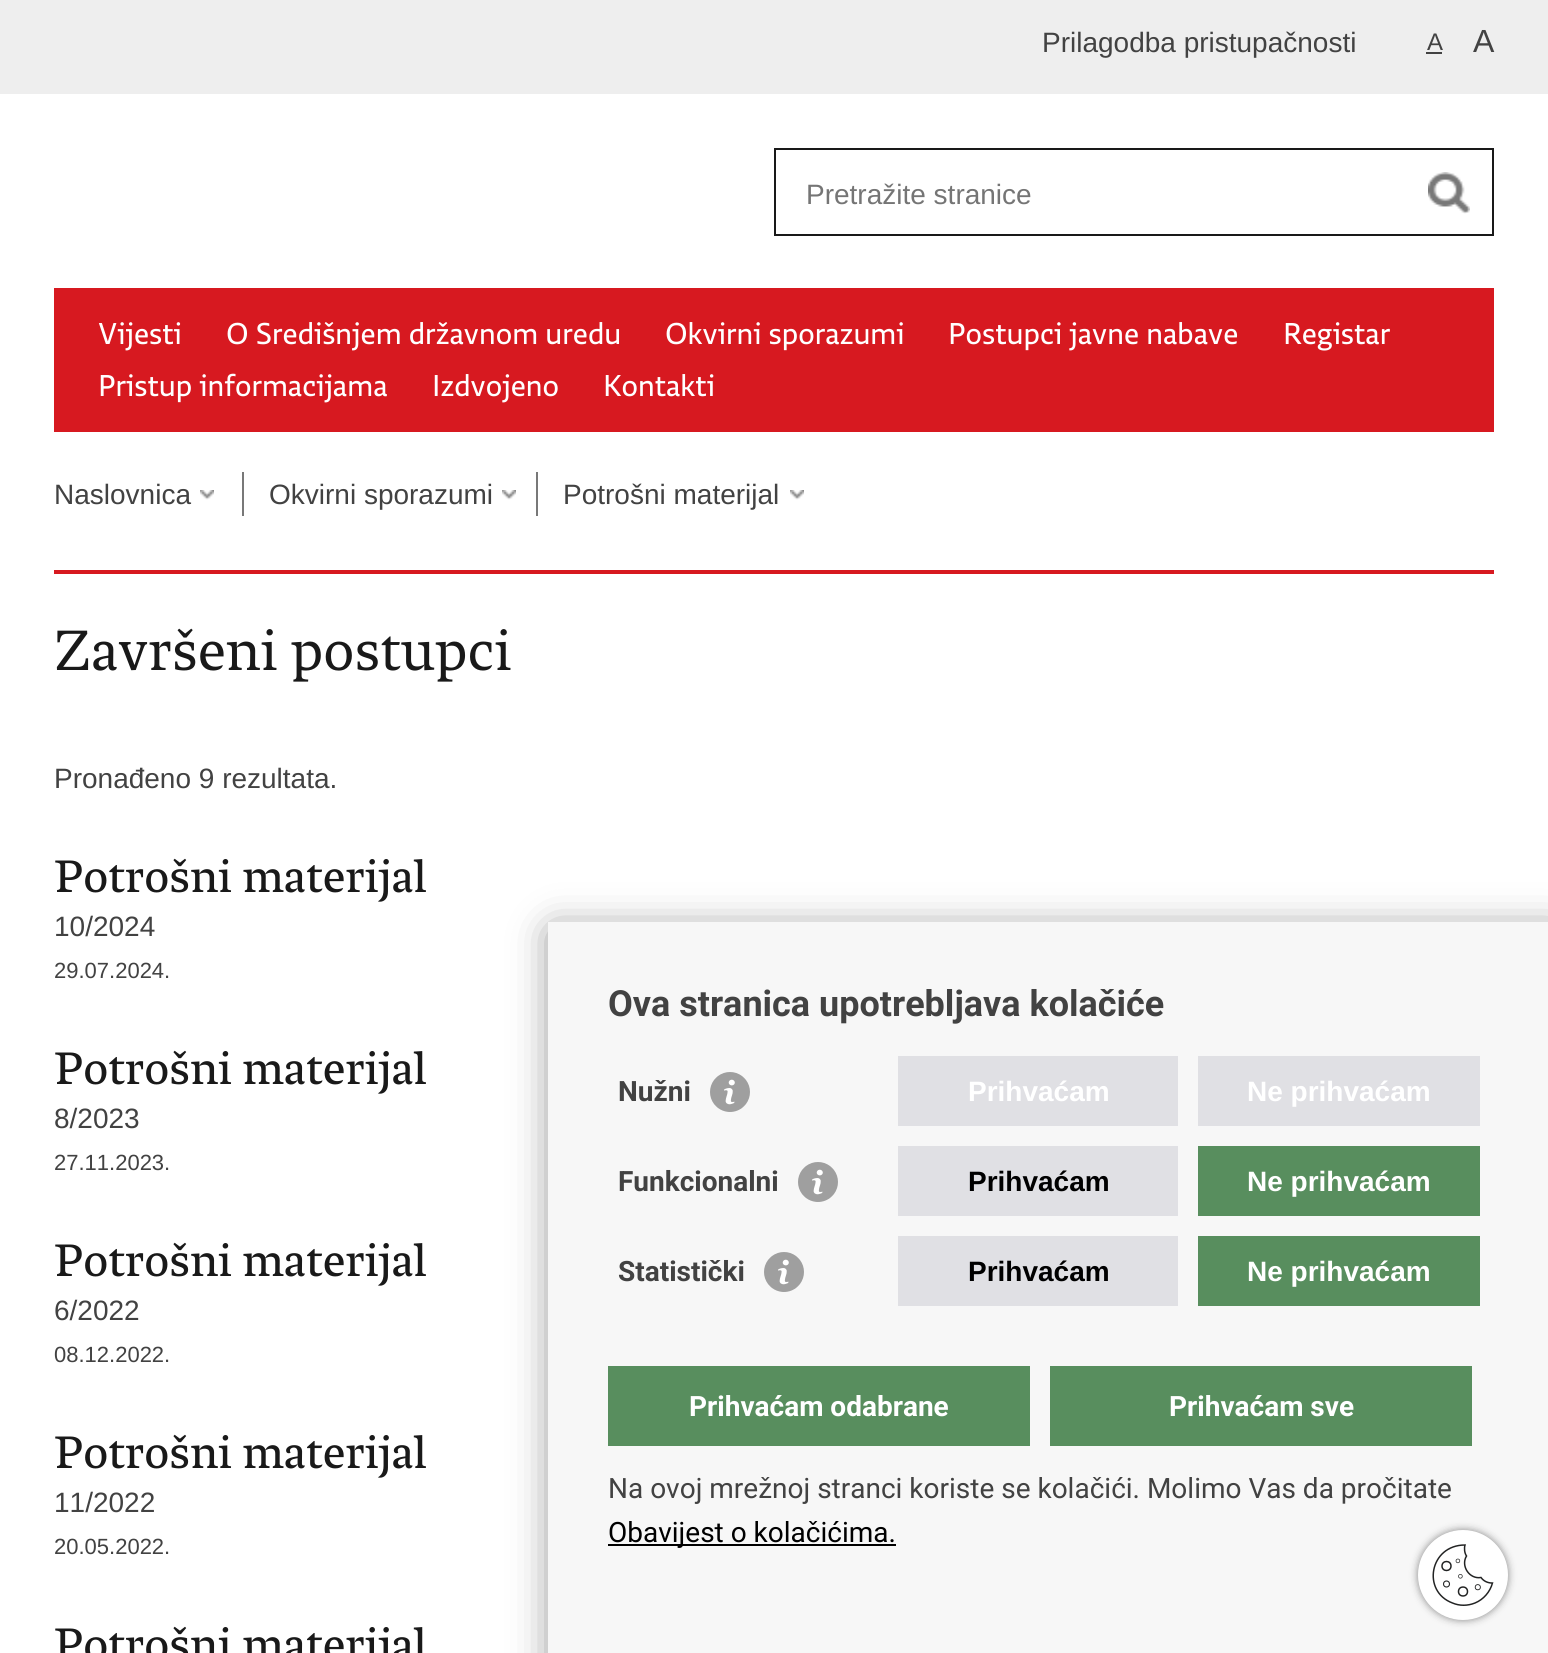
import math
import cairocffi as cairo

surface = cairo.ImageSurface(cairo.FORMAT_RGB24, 1548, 1653)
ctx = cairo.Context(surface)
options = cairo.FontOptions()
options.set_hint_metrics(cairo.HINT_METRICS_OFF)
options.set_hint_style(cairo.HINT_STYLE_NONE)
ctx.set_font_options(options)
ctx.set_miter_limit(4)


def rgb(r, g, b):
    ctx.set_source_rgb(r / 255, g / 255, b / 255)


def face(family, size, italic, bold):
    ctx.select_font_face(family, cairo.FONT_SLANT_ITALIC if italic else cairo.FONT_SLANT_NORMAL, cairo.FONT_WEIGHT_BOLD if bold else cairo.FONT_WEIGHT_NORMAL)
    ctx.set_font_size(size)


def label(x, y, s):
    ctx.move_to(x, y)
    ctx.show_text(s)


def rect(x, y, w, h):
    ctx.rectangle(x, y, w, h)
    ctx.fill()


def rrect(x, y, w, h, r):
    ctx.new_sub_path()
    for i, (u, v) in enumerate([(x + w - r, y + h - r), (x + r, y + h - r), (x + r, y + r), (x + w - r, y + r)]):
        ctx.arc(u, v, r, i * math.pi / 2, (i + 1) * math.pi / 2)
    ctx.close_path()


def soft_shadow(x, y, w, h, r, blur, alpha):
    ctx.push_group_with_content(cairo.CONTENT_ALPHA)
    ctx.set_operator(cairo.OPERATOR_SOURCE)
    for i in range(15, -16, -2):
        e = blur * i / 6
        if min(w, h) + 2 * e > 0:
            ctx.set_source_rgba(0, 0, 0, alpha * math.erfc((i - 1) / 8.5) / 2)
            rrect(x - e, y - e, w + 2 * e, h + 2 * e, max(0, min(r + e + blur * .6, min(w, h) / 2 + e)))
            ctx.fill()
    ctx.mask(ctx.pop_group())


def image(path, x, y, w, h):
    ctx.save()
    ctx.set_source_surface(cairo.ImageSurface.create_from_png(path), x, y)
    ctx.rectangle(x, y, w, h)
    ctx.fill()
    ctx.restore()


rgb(255, 255, 255)
ctx.paint()
rgb(238, 238, 238)
rect(0, 0, 1548, 94)
face('Liberation Sans', 28, 0, 0)
rgb(66, 66, 66)
label(1042, 52, 'Prilagodba pristupačnosti')
face('Liberation Sans', 24, 0, 0)
label(1427, 50, 'A')
rect(1426, 52, 16, 2)
face('Liberation Sans', 32, 0, 0)
label(1473, 52, 'A')
ctx.rectangle(775, 149, 718, 86)
rgb(25, 25, 25)
ctx.stroke()
face('Liberation Sans', 28, 0, 0)
rgb(117, 117, 117)
label(806, 204, 'Pretražite stranice')
image('image0.png', 1428, 172, 42, 42)
rgb(215, 25, 32)
rect(54, 288, 1440, 144)
face('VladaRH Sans', 32, 0, 0)
rgb(255, 255, 255)
label(98, 344, 'Vijesti')
label(226, 344, 'O Središnjem državnom uredu')
label(665, 344, 'Okvirni sporazumi')
label(948, 344, 'Postupci javne nabave')
label(1283, 344, 'Registar')
label(98, 396, 'Pristup informacijama')
label(432, 396, 'Izdvojeno')
label(603, 396, 'Kontakti')
face('Liberation Sans', 28, 0, 0)
rgb(66, 66, 66)
label(54, 504, 'Naslovnica')
image('image1.png', 200, 490, 14, 10)
rgb(120, 120, 120)
rect(242, 472, 2, 44)
rgb(66, 66, 66)
label(269, 504, 'Okvirni sporazumi')
image('image1.png', 502, 490, 14, 10)
rgb(120, 120, 120)
rect(536, 472, 2, 44)
rgb(66, 66, 66)
label(563, 504, 'Potrošni materijal')
image('image1.png', 790, 490, 14, 10)
rgb(215, 25, 32)
rect(54, 570, 1440, 4)
face('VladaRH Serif', 60, 0, 0)
rgb(25, 25, 25)
label(54, 670, 'Završeni postupci')
face('Liberation Sans', 28, 0, 0)
rgb(66, 66, 66)
label(54, 788, 'Pronađeno 9 rezultata.')
face('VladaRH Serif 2', 48, 0, 0)
rgb(25, 25, 25)
label(54, 892, 'Potrošni materijal')
face('Liberation Sans', 28, 0, 0)
rgb(66, 66, 66)
label(54, 936, '10/2024')
face('Liberation Sans', 22, 0, 0)
label(54, 978, '29.07.2024.')
face('VladaRH Serif 2', 48, 0, 0)
rgb(25, 25, 25)
label(54, 1084, 'Potrošni materijal')
face('Liberation Sans', 28, 0, 0)
rgb(66, 66, 66)
label(54, 1128, '8/2023')
face('Liberation Sans', 22, 0, 0)
label(54, 1170, '27.11.2023.')
face('VladaRH Serif 2', 48, 0, 0)
rgb(25, 25, 25)
label(54, 1276, 'Potrošni materijal')
face('Liberation Sans', 28, 0, 0)
rgb(66, 66, 66)
label(54, 1320, '6/2022')
face('Liberation Sans', 22, 0, 0)
label(54, 1362, '08.12.2022.')
face('VladaRH Serif 2', 48, 0, 0)
rgb(25, 25, 25)
label(54, 1468, 'Potrošni materijal')
face('Liberation Sans', 28, 0, 0)
rgb(66, 66, 66)
label(54, 1512, '11/2022')
face('Liberation Sans', 22, 0, 0)
label(54, 1554, '20.05.2022.')
face('VladaRH Serif 2', 48, 0, 0)
rgb(25, 25, 25)
label(54, 1660, 'Potrošni materijal')
rgb(0, 0, 0)
soft_shadow(554, 932, 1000, 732, 0, 20, 0.5)
rgb(247, 247, 247)
rect(548, 922, 1000, 731)
face('Roboto', 36, 0, 1)
rgb(66, 66, 66)
label(608, 1016, 'Ova stranica upotrebljava kolačiće')
face('Roboto', 28, 0, 1)
label(618, 1101, 'Nužni')
image('image2.png', 710, 1072, 40, 40)
rgb(224, 224, 228)
rect(898, 1056, 280, 70)
face('Liberation Sans', 28, 0, 1)
rgb(255, 255, 255)
label(968, 1101, 'Prihvaćam')
rgb(224, 224, 228)
rect(1198, 1056, 282, 70)
rgb(255, 255, 255)
label(1247, 1101, 'Ne prihvaćam')
face('Roboto', 28, 0, 1)
rgb(66, 66, 66)
label(618, 1191, 'Funkcionalni')
image('image2.png', 798, 1162, 40, 40)
rgb(224, 224, 228)
rect(898, 1146, 280, 70)
face('Liberation Sans', 28, 0, 1)
rgb(0, 0, 0)
label(968, 1191, 'Prihvaćam')
rgb(88, 142, 94)
rect(1198, 1146, 282, 70)
rgb(255, 255, 255)
label(1247, 1191, 'Ne prihvaćam')
face('Roboto', 28, 0, 1)
rgb(66, 66, 66)
label(618, 1281, 'Statistički')
image('image2.png', 764, 1252, 40, 40)
rgb(224, 224, 228)
rect(898, 1236, 280, 70)
face('Liberation Sans', 28, 0, 1)
rgb(0, 0, 0)
label(968, 1281, 'Prihvaćam')
rgb(88, 142, 94)
rect(1198, 1236, 282, 70)
rgb(255, 255, 255)
label(1247, 1281, 'Ne prihvaćam')
rgb(88, 142, 94)
rect(608, 1366, 422, 80)
face('Roboto', 28, 0, 1)
rgb(255, 255, 255)
label(689, 1416, 'Prihvaćam odabrane')
rgb(88, 142, 94)
rect(1050, 1366, 422, 80)
rgb(255, 255, 255)
label(1169, 1416, 'Prihvaćam sve')
face('Roboto', 28, 0, 0)
rgb(66, 66, 66)
label(608, 1498, 'Na ovoj mrežnoj stranci koriste se kolačići. Molimo Vas da pročitate')
rgb(0, 0, 0)
rect(608, 1544, 288, 2)
label(608, 1542, 'Obavijest o kolačićima.')
rgb(133, 133, 133)
soft_shadow(1418, 1530, 90, 90, 45, 4, 1)
rgb(255, 255, 255)
ctx.arc(1463, 1575, 45, 0, 2 * math.pi)
ctx.fill()
ctx.new_path()
ctx.move_to(1492, 1583)
ctx.curve_to(1487.5, 1583, 1483.5, 1581, 1481, 1577.5)
ctx.curve_to(1469.5, 1579.5, 1460.5, 1566, 1466.5, 1556)
ctx.curve_to(1464.5, 1553, 1464, 1548.5, 1465, 1545)
ctx.curve_to(1429.5, 1545, 1421.5, 1591.5, 1452.5, 1603)
ctx.curve_to(1459.5, 1606, 1467.5, 1606, 1475, 1603)
ctx.curve_to(1483.5, 1599.5, 1490, 1592, 1492.5, 1583)
ctx.close_path()
rgb(34, 35, 35)
ctx.set_line_width(1.5)
ctx.stroke()
ctx.arc(1446.5, 1566, 4.5, 0, 2 * math.pi)
ctx.stroke()
ctx.arc(1463, 1591.5, 4.5, 0, 2 * math.pi)
ctx.stroke()
ctx.arc(1446.5, 1584, 3, 0, 2 * math.pi)
ctx.set_line_width(1.1)
ctx.stroke()
ctx.arc(1477.8, 1587.2, 2.6, 0, 2 * math.pi)
ctx.set_line_width(0.9)
ctx.stroke()
ctx.arc(1460.4, 1576.3, 1.9, 0, 2 * math.pi)
ctx.set_line_width(0.7)
ctx.stroke()
ctx.arc(1457.9, 1560.9, 1.9, 0, 2 * math.pi)
ctx.stroke()
surface.write_to_png('render.png')
